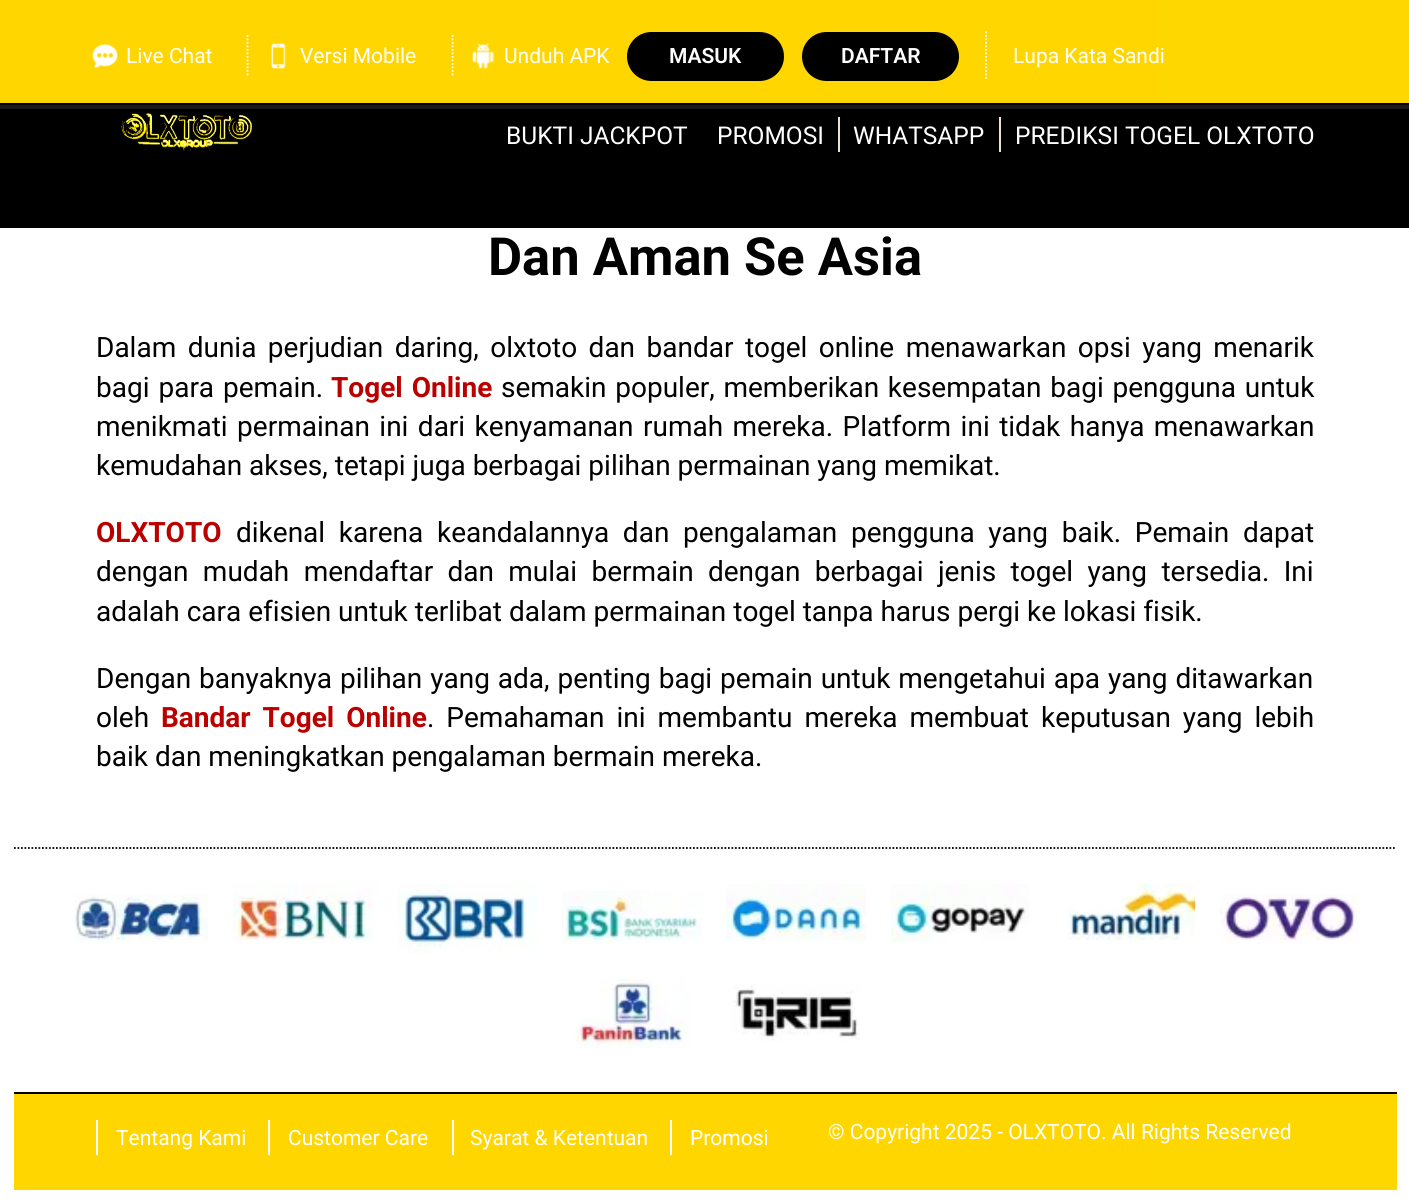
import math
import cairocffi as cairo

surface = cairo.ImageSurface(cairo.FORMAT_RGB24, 1409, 1203)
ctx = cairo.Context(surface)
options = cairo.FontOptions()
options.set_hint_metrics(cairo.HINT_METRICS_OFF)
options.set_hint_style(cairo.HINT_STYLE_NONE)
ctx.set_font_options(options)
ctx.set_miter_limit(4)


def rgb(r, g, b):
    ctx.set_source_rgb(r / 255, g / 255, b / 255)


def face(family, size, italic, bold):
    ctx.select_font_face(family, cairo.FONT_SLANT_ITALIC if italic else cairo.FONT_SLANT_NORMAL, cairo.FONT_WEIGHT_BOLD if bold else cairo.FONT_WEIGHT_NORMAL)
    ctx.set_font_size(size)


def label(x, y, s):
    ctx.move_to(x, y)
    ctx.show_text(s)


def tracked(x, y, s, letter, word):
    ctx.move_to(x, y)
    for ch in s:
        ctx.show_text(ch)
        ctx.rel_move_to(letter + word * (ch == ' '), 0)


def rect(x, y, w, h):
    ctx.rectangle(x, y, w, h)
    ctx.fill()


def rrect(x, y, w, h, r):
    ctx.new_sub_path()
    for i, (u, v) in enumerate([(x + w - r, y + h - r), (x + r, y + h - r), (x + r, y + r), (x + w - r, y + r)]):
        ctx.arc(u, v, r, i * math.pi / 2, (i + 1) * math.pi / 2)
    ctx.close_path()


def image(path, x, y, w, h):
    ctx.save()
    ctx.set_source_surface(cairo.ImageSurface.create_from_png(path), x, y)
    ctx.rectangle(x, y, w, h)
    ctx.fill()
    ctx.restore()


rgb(255, 255, 255)
ctx.paint()
gradient = cairo.LinearGradient(-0.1, 53, 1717, 49)
gradient.add_color_stop_rgba(0.29, 1, 0.839, 0, 1)
gradient.add_color_stop_rgba(1, 1, 0.843, 0, 1)
ctx.set_source(gradient)
rect(0, 0, 1409, 103)
rgb(0, 0, 0)
rect(0, 103, 1409, 2)
image('image0.png', 92, 43, 26, 26)
face('Roboto', 21, 0, 0)
rgb(255, 255, 255)
label(126, 63, 'Live Chat')
ctx.new_path()
ctx.move_to(247.5, 35)
ctx.line_to(247.5, 77)
ctx.set_line_width(1.8)
ctx.set_dash([1.75, 1.75])
ctx.stroke()
image('image1.png', 271, 43, 15, 26)
label(300, 63, 'Versi Mobile')
ctx.new_path()
ctx.move_to(452.5, 35)
ctx.line_to(452.5, 77)
ctx.stroke()
image('image2.png', 472, 43, 22, 26)
label(504, 63, 'Unduh APK')
rgb(0, 0, 0)
rrect(627, 32, 157, 49, 24.5)
ctx.fill()
face('Roboto SemiBold', 21, 0, 0)
rgb(255, 255, 255)
label(669, 63, 'MASUK')
ctx.new_path()
ctx.move_to(986, 31.5)
ctx.line_to(986, 80.5)
ctx.stroke()
rgb(0, 0, 0)
rrect(802, 32, 157, 49, 24.5)
ctx.fill()
rgb(255, 255, 255)
label(841, 63, 'DAFTAR')
face('Roboto', 21, 0, 0)
label(1013, 63, 'Lupa Kata Sandi')
rgb(0, 0, 0)
rect(0, 109, 1409, 119)
rgb(26, 26, 26)
rect(0, 105, 1409, 4)
image('image3.png', 121, 113, 131, 38)
face('Roboto', 24.5, 0, 0)
rgb(255, 255, 255)
label(506, 144, 'BUKTI JACKPOT')
label(717, 144, 'PROMOSI')
rgb(234, 226, 211)
rect(838, 117, 2, 35)
rgb(255, 255, 255)
label(853, 144, 'WHATSAPP')
rgb(234, 226, 211)
rect(999, 117, 2, 35)
rgb(255, 255, 255)
label(1015, 144, 'PREDIKSI TOGEL OLXTOTO')
face('Roboto', 52.5, 0, 1)
rgb(0, 0, 0)
label(488, 275, 'Dan Aman Se Asia')
face('Roboto', 28, 0, 0)
tracked(96, 357, 'Dalam dunia perjudian daring, olxtoto dan bandar togel online menawarkan opsi yang menarik', 0, 4.5)
tracked(96, 397, 'bagi para pemain.', 0, 2)
face('Roboto', 28, 0, 1)
rgb(187, 0, 0)
tracked(331, 397, 'Togel Online', 0, 2)
face('Roboto', 28, 0, 0)
rgb(0, 0, 0)
tracked(501, 397, 'semakin populer, memberikan kesempatan bagi pengguna untuk', 0, 1.75)
tracked(96, 436, 'menikmati permainan ini dari kenyamanan rumah mereka. Platform ini tidak hanya menawarkan', 0, 2.5)
label(96, 475, 'kemudahan akses, tetapi juga berbagai pilihan permainan yang memikat.')
face('Roboto', 28, 0, 1)
rgb(187, 0, 0)
label(96, 542, 'OLXTOTO')
face('Roboto', 28, 0, 0)
rgb(0, 0, 0)
tracked(236, 542, 'dikenal karena keandalannya dan pengalaman pengguna yang baik. Pemain dapat', 0, 6.75)
tracked(96, 581, 'dengan mudah mendaftar dan mulai bermain dengan berbagai jenis togel yang tersedia. Ini', 0, 7.4)
label(96, 621, 'adalah cara efisien untuk terlibat dalam permainan togel tanpa harus pergi ke lokasi fisik.')
tracked(96, 688, 'Dengan banyaknya pilihan yang ada, penting bagi pemain untuk mengetahui apa yang ditawarkan', 0, 1)
label(96, 727, 'oleh')
face('Roboto', 28, 0, 1)
rgb(187, 0, 0)
tracked(161, 727, 'Bandar Togel Online', 0, 5)
face('Roboto', 28, 0, 0)
rgb(0, 0, 0)
tracked(427, 727, '. Pemahaman ini membantu mereka membuat keputusan yang lebih', 0, 5)
label(96, 766, 'baik dan meningkatkan pengalaman bermain mereka.')
ctx.new_path()
ctx.move_to(14, 848)
ctx.line_to(1396.5, 848)
ctx.stroke()
image('image4.png', 74, 894, 134, 49)
image('image5.png', 233, 884, 140, 58)
image('image6.png', 397, 884, 140, 69)
image('image7.png', 562, 891, 140, 54)
image('image8.png', 726, 884, 140, 57)
image('image9.png', 891, 884, 138, 58)
image('image10.png', 1068, 883, 128, 58)
image('image11.png', 1220, 894, 139, 50)
image('image12.png', 574, 978, 116, 70)
image('image13.png', 732, 984, 128, 57)
gradient = cairo.LinearGradient(14, 1143, 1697, 1140)
gradient.add_color_stop_rgba(0.29, 1, 0.839, 0, 1)
gradient.add_color_stop_rgba(1, 1, 0.843, 0, 1)
ctx.set_source(gradient)
rect(14, 1094, 1383, 96)
rgb(0, 0, 0)
rect(14, 1092, 1383, 2)
rgb(255, 255, 255)
rect(96, 1120, 2, 35)
face('Roboto', 21, 0, 0)
label(116, 1145, 'Tentang Kami')
rect(268, 1120, 2, 35)
label(288, 1145, 'Customer Care')
rect(452, 1120, 2, 35)
label(470, 1145, 'Syarat & Ketentuan')
rect(670, 1120, 2, 35)
label(690, 1145, 'Promosi')
label(828, 1139, '© Copyright 2025 - OLXTOTO. All Rights Reserved')
surface.write_to_png('render.png')
